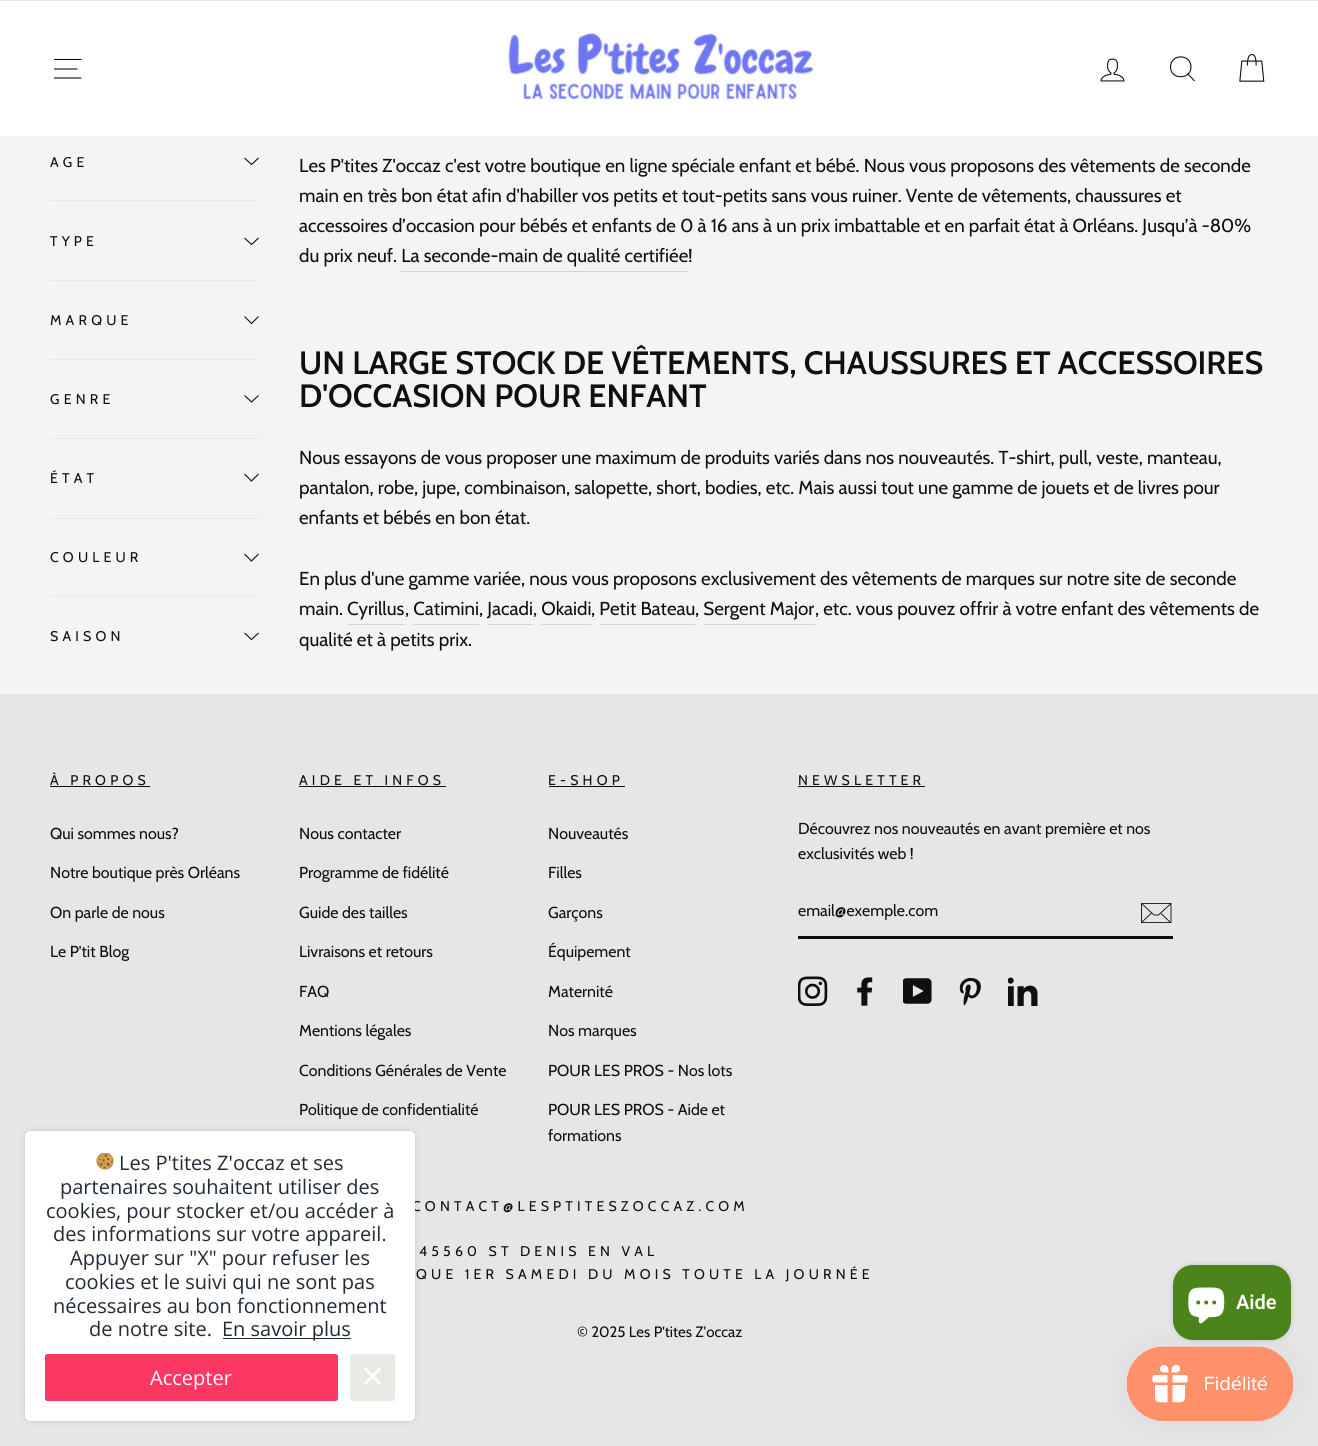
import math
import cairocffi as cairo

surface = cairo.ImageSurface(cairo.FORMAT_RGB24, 1318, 1446)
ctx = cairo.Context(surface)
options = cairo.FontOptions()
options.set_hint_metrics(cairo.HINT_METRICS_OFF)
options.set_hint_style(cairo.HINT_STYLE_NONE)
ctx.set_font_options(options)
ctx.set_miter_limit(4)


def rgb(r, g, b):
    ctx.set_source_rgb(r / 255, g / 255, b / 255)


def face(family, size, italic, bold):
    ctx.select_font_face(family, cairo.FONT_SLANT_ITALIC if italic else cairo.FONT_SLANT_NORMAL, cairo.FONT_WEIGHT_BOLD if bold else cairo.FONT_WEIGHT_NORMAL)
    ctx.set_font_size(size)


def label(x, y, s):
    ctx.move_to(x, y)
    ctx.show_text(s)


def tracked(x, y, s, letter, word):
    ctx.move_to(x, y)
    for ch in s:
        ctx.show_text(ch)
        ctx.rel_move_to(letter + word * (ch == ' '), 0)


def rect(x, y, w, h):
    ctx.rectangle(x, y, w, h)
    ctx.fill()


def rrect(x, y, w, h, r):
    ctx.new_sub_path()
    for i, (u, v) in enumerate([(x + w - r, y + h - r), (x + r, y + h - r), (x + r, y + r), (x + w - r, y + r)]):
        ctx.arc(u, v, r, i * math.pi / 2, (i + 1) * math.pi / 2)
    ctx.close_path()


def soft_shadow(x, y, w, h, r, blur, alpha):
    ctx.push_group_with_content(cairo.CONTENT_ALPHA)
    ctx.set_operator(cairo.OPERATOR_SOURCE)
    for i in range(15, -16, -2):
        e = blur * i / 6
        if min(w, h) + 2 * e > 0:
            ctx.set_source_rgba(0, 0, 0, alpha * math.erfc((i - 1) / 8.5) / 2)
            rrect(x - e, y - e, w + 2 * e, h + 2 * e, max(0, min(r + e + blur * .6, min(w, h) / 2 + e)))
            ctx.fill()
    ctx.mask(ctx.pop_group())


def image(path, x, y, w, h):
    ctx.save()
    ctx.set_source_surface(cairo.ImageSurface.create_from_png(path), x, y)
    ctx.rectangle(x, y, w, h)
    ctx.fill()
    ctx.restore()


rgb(244, 244, 244)
ctx.paint()
rgb(255, 255, 255)
rect(0, 1, 1318, 135)
rgb(231, 231, 231)
rect(0, 0, 1318, 1)
ctx.new_path()
ctx.move_to(54, 59.5)
ctx.line_to(81.5, 59.5)
ctx.move_to(54, 69)
ctx.line_to(77.5, 69)
ctx.move_to(54, 78)
ctx.line_to(81.5, 78)
rgb(15, 15, 15)
ctx.set_line_width(1.1)
ctx.stroke()
image('image0.png', 508, 32, 306, 68)
image('image1.png', 1100, 58, 25, 24)
ctx.new_path()
ctx.move_to(1191, 67)
ctx.curve_to(1191, 80, 1170.5, 80, 1170.5, 67)
ctx.curve_to(1170.5, 53.5, 1191, 53.5, 1191, 67)
ctx.close_path()
ctx.move_to(1194.5, 81)
ctx.line_to(1188, 74)
ctx.stroke()
image('image2.png', 1239, 54, 26, 28)
face('Cabin', 14.05, 0, 0)
tracked(50, 167, 'AGE', 4.2, 0)
ctx.new_path()
ctx.move_to(244.5, 158)
ctx.line_to(251.5, 164.5)
ctx.line_to(258.5, 158)
ctx.stroke()
rgb(232, 232, 225)
rect(50, 200, 209, 1)
rgb(15, 15, 15)
tracked(50, 246, 'TYPE', 4.2, 0)
ctx.new_path()
ctx.move_to(244.5, 238)
ctx.line_to(251.5, 244.5)
ctx.line_to(258.5, 238)
ctx.stroke()
rgb(232, 232, 225)
rect(50, 280, 209, 1)
rgb(15, 15, 15)
tracked(50, 325, 'MARQUE', 4.2, 0)
ctx.new_path()
ctx.move_to(244.5, 316.5)
ctx.line_to(251.5, 323.5)
ctx.line_to(258.5, 316.5)
ctx.stroke()
rgb(232, 232, 225)
rect(50, 359, 209, 1)
rgb(15, 15, 15)
tracked(50, 404, 'GENRE', 4.2, 0)
ctx.new_path()
ctx.move_to(244.5, 395.5)
ctx.line_to(251.5, 402)
ctx.line_to(258.5, 395.5)
ctx.stroke()
rgb(232, 232, 225)
rect(50, 438, 209, 1)
rgb(15, 15, 15)
tracked(50, 483, 'ÉTAT', 4.2, 0)
ctx.new_path()
ctx.move_to(244.5, 474)
ctx.line_to(251.5, 481)
ctx.line_to(258.5, 474)
ctx.stroke()
rgb(232, 232, 225)
rect(50, 518, 209, 1)
rgb(15, 15, 15)
tracked(50, 562, 'COULEUR', 4.2, 0)
ctx.new_path()
ctx.move_to(244.5, 554)
ctx.line_to(251.5, 561)
ctx.line_to(258.5, 554)
ctx.stroke()
rgb(232, 232, 225)
rect(50, 596, 209, 1)
rgb(15, 15, 15)
tracked(50, 641, 'SAISON', 4.2, 0)
ctx.new_path()
ctx.move_to(244.5, 633)
ctx.line_to(251.5, 639.5)
ctx.line_to(258.5, 633)
ctx.stroke()
face('Cabin', 18.75, 0, 0)
label(299, 172, 'Les P\'tites Z\'occaz c\'est votre boutique en ligne spéciale enfant et bébé. Nous vous proposons des vêtements de seconde')
label(299, 202, 'main en très bon état afin d\'habiller vos petits et tout-petits sans vous ruiner. Vente de vêtements, chaussures et')
label(299, 232, 'accessoires d’occasion pour bébés et enfants de 0 à 16 ans à un prix imbattable et en parfait état à Orléans. Jusqu’à -80%')
label(299, 262, 'du prix neuf. La seconde-main de qualité certifiée')
label(688, 262, '!')
rgb(210, 210, 210)
rect(401, 271, 288, 1)
face('Cabin SemiBold', 32.25, 0, 0)
rgb(15, 15, 15)
label(299, 374, 'UN LARGE STOCK DE VÊTEMENTS, CHAUSSURES ET ACCESSOIRES')
label(299, 407, 'D\'OCCASION POUR ENFANT')
face('Cabin', 18.75, 0, 0)
label(299, 464, 'Nous essayons de vous proposer une maximum de produits variés dans nos nouveautés. T-shirt, pull, veste, manteau,')
label(299, 494, 'pantalon, robe, jupe, combinaison, salopette, short, bodies, etc. Mais aussi tout une gamme de jouets et de livres pour')
label(299, 524, 'enfants et bébés en bon état.')
label(299, 585, 'En plus d\'une gamme variée, nous vous proposons exclusivement des vêtements de marques sur notre site de seconde')
label(299, 615, 'main. Cyrillus')
label(405, 615, ', Catimini')
label(479, 615, ', Jacadi')
label(533, 615, ', Okaidi')
label(591, 615, ', Petit Bateau')
label(695, 615, ', Sergent Major')
label(815, 615, ', etc. vous pouvez offrir à votre enfant des vêtements de')
rgb(210, 210, 210)
rect(348, 624, 57, 1)
rect(413, 624, 66, 1)
rect(488, 624, 45, 1)
rect(541, 624, 50, 1)
rect(599, 624, 96, 1)
rect(704, 624, 111, 1)
rgb(15, 15, 15)
label(299, 646, 'qualité et à petits prix.')
rgb(230, 230, 230)
rect(0, 694, 1318, 752)
face('Cabin', 14.05, 0, 0)
rgb(15, 15, 15)
tracked(50, 785, 'À PROPOS', 4.2, 0)
rect(50, 786, 100, 1)
face('Cabin', 15.9, 0, 0)
label(50, 839, 'Qui sommes nous?')
label(50, 878, 'Notre boutique près Orléans')
label(50, 918, 'On parle de nous')
label(50, 957, 'Le P\'tit Blog')
face('Cabin', 14.05, 0, 0)
tracked(299, 785, 'AIDE ET INFOS', 4.2, 0)
rect(299, 786, 147, 1)
face('Cabin', 15.9, 0, 0)
label(299, 839, 'Nous contacter')
label(299, 878, 'Programme de fidélité')
label(299, 918, 'Guide des tailles')
label(299, 957, 'Livraisons et retours')
label(299, 997, 'FAQ')
label(299, 1036, 'Mentions légales')
label(299, 1076, 'Conditions Générales de Vente')
label(299, 1115, 'Politique de confidentialité')
face('Cabin', 14.05, 0, 0)
tracked(548, 785, 'E-SHOP', 4.2, 0)
rect(549, 786, 76, 1)
face('Cabin', 15.9, 0, 0)
label(548, 839, 'Nouveautés')
label(548, 878, 'Filles')
label(548, 918, 'Garçons')
label(548, 957, 'Équipement')
label(548, 997, 'Maternité')
label(548, 1036, 'Nos marques')
label(548, 1076, 'POUR LES PROS - Nos lots')
label(548, 1115, 'POUR LES PROS - Aide et')
label(548, 1141, 'formations')
face('Cabin', 14.05, 0, 0)
tracked(798, 785, 'NEWSLETTER', 4.2, 0)
rect(798, 786, 127, 1)
face('Cabin', 15.9, 0, 0)
label(798, 834, 'Découvrez nos nouveautés en avant première et nos')
label(798, 859, 'exclusivités web !')
rect(798, 936, 375, 3)
label(798, 916, 'email@exemple.com')
ctx.new_path()
ctx.move_to(1171, 922.5)
ctx.line_to(1141.5, 922.5)
ctx.line_to(1141.5, 903.5)
ctx.line_to(1171, 903.5)
ctx.close_path()
ctx.move_to(1141.5, 903.5)
ctx.line_to(1154, 915)
ctx.line_to(1158.5, 915)
ctx.line_to(1171, 903.5)
ctx.move_to(1151.5, 913)
ctx.line_to(1142, 922)
ctx.move_to(1170.5, 922.5)
ctx.line_to(1160.5, 913)
ctx.set_line_width(0.9)
ctx.stroke()
image('image3.png', 798, 976, 30, 30)
image('image4.png', 857, 977, 16, 29)
image('image5.png', 903, 978, 29, 26)
image('image6.png', 959, 978, 22, 28)
image('image7.png', 1008, 977, 30, 29)
face('Cabin', 14.05, 0, 0)
tracked(412, 1211, 'CONTACT@LESPTITESZOCCAZ.COM', 4.2, 0)
tracked(419, 1256, '45560 ST DENIS EN VAL', 4.2, 0)
tracked(416, 1279, 'QUE 1ER SAMEDI DU MOIS TOUTE LA JOURNÉE', 4.2, 0)
face('Cabin', 15, 0, 0)
label(577, 1337, '© 2025 Les P\'tites Z\'occaz')
rgb(255, 255, 255)
rrect(25, 1131, 390, 290, 6)
ctx.fill()
ctx.save()
ctx.set_fill_rule(cairo.FILL_RULE_EVEN_ODD)
ctx.new_path()
ctx.move_to(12, 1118)
ctx.line_to(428, 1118)
ctx.line_to(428, 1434)
ctx.line_to(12, 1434)
ctx.close_path()
ctx.move_to(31, 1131)
ctx.line_to(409, 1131)
ctx.curve_to(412.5, 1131, 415, 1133.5, 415, 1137)
ctx.line_to(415, 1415)
ctx.curve_to(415, 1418.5, 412.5, 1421, 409, 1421)
ctx.line_to(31, 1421)
ctx.curve_to(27.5, 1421, 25, 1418.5, 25, 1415)
ctx.line_to(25, 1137)
ctx.curve_to(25, 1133.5, 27.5, 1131, 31, 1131)
ctx.close_path()
ctx.clip()
rgb(0, 0, 0)
soft_shadow(25, 1131, 390, 290, 6, 4, 0.12)
ctx.restore()
image('image8.png', 96, 1153, 18, 17)
face('Open Sans', 20, 0, 0)
rgb(33, 43, 54)
label(119, 1170, 'Les P\'tites Z\'occaz et ses')
label(60, 1194, 'partenaires souhaitent utiliser des')
label(46, 1218, 'cookies, pour stocker et/ou accéder à')
label(53, 1241, 'des informations sur votre appareil.')
label(70, 1265, 'Appuyer sur "X" pour refuser les')
label(65, 1289, 'cookies et le suivi qui ne sont pas')
label(53, 1313, 'nécessaires au bon fonctionnement')
label(89, 1336, 'de notre site.')
rect(223, 1338, 128, 1)
label(222, 1336, 'En savoir plus')
rgb(252, 55, 98)
rrect(45, 1354, 293, 47, 2.5)
ctx.fill()
rgb(255, 255, 255)
label(150, 1385, 'Accepter')
rgb(234, 233, 228)
rrect(350, 1354, 45, 47, 2.5)
ctx.fill()
image('image9.png', 364, 1367, 17, 18)
rgb(0, 0, 0)
soft_shadow(1173, 1265, 118, 75, 20, 3, 0.15)
rgb(74, 132, 26)
rrect(1173, 1265, 118, 75, 20)
ctx.fill()
image('image10.png', 1188, 1287, 37, 37)
face('Roboto SemiBold', 20, 0, 0)
rgb(255, 255, 255)
label(1236, 1309, 'Aide')
rgb(0, 0, 0)
soft_shadow(1126, 1346, 168, 75, 37.5, 15.5, 0.05)
image('image11.png', 1126, 1346, 168, 75)
surface.write_to_png('render.png')
